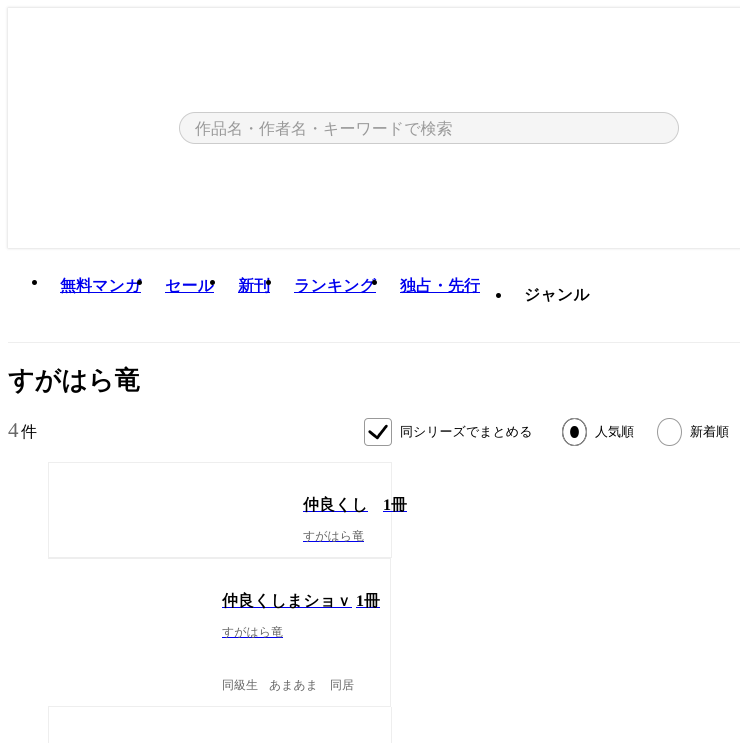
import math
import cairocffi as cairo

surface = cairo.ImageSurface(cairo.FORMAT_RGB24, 740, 743)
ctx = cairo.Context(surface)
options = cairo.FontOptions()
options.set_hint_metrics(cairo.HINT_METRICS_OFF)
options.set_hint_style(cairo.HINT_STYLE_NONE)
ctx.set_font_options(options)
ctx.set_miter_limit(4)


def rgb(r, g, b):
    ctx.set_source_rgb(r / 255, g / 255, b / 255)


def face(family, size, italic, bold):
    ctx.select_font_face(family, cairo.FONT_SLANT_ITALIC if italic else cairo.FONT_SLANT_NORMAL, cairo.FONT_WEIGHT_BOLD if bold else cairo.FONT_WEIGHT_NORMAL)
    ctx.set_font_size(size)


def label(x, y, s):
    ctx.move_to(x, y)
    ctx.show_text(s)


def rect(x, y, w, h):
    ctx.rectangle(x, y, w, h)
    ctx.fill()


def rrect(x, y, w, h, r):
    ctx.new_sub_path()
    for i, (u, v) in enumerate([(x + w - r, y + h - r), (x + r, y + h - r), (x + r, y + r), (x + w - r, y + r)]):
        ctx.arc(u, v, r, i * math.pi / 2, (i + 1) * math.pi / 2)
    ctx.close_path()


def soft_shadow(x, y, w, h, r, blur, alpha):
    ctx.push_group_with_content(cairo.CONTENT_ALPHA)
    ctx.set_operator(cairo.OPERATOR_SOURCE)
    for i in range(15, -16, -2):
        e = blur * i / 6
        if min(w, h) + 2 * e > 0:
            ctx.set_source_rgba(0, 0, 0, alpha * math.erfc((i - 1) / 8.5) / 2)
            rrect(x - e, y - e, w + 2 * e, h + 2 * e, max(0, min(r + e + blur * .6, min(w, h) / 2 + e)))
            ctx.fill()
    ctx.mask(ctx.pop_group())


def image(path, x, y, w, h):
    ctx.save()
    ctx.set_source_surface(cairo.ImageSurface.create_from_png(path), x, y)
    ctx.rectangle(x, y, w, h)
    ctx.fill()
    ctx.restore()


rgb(255, 255, 255)
ctx.paint()
ctx.save()
ctx.set_fill_rule(cairo.FILL_RULE_EVEN_ODD)
ctx.new_path()
ctx.move_to(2, 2)
ctx.line_to(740, 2)
ctx.line_to(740, 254)
ctx.line_to(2, 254)
ctx.close_path()
ctx.move_to(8, 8)
ctx.line_to(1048, 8)
ctx.line_to(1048, 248)
ctx.line_to(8, 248)
ctx.close_path()
ctx.clip()
rgb(0, 0, 0)
soft_shadow(8, 8, 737, 240, 0, 1.5, 0.2)
ctx.restore()
rgb(245, 245, 245)
rrect(179.5, 112.5, 499, 31, 15.5)
ctx.fill_preserve()
rgb(204, 204, 204)
ctx.set_line_width(1)
ctx.stroke()
face('WenQuanYi Zen Hei Medium', 16, 0, 0)
rgb(153, 153, 153)
label(195, 134, '作品名・作者名・キーワードで検索')
rgb(238, 238, 238)
rect(8, 342, 732, 1)
rgb(0, 0, 0)
ctx.new_path()
ctx.arc(34.5, 282.5, 2.5, 0, 2 * math.pi)
ctx.fill()
rgb(0, 0, 238)
rect(60, 292, 81, 1)
face('WenQuanYi Zen Hei', 16, 0, 1)
label(60, 291, '無料マンガ')
rgb(0, 0, 0)
ctx.new_path()
ctx.arc(139.5, 282.5, 2.5, 0, 2 * math.pi)
ctx.fill()
rgb(0, 0, 238)
rect(165, 292, 49, 1)
label(165, 291, 'セール')
rgb(0, 0, 0)
ctx.new_path()
ctx.arc(212.5, 282.5, 2.5, 0, 2 * math.pi)
ctx.fill()
rgb(0, 0, 238)
rect(238, 292, 32, 1)
label(238, 291, '新刊')
rgb(0, 0, 0)
ctx.new_path()
ctx.arc(268.5, 282.5, 2.5, 0, 2 * math.pi)
ctx.fill()
rgb(0, 0, 238)
rect(294, 292, 82, 1)
label(294, 291, 'ランキング')
rgb(0, 0, 0)
ctx.new_path()
ctx.arc(374.5, 282.5, 2.5, 0, 2 * math.pi)
ctx.fill()
rgb(0, 0, 238)
rect(400, 292, 80, 1)
label(400, 291, '独占・先行')
rgb(0, 0, 0)
ctx.new_path()
ctx.arc(498.5, 295.5, 2.5, 0, 2 * math.pi)
ctx.fill()
label(524, 300, 'ジャンル')
face('WenQuanYi Zen Hei', 26, 0, 1)
label(8, 389, 'すがはら竜')
face('Liberation Serif', 21, 0, 0)
rgb(102, 102, 102)
label(8, 437, '4')
face('WenQuanYi Zen Hei Medium', 16, 0, 0)
rgb(0, 0, 0)
label(21, 437, '件')
rrect(364.5, 418.5, 27, 27, 3.5)
rgb(153, 153, 153)
ctx.stroke()
image('image0.png', 368, 424, 20, 16)
face('WenQuanYi Zen Hei Medium', 13, 0, 0)
rgb(0, 0, 0)
label(400, 436, '同シリーズでまとめる')
ctx.new_path()
ctx.move_to(574.5, 418)
ctx.curve_to(581.5, 418, 587, 424.5, 587, 432)
ctx.curve_to(587, 439.5, 581.5, 446, 574.5, 446)
ctx.curve_to(567.5, 446, 562, 439.5, 562, 432)
ctx.curve_to(562, 424.5, 567.5, 418, 574.5, 418)
ctx.close_path()
ctx.fill()
ctx.new_path()
ctx.move_to(574.5, 422.5)
ctx.curve_to(585, 422.5, 585, 441.5, 574.5, 441.5)
ctx.curve_to(564, 441.5, 564, 422.5, 574.5, 422.5)
ctx.close_path()
rgb(255, 255, 255)
ctx.set_line_width(7)
ctx.stroke()
ctx.new_path()
ctx.move_to(574.5, 418.5)
ctx.curve_to(590.5, 418.5, 590.5, 445.5, 574.5, 445.5)
ctx.curve_to(558.5, 445.5, 558.5, 418.5, 574.5, 418.5)
ctx.close_path()
rgb(153, 153, 153)
ctx.set_line_width(1)
ctx.stroke()
rgb(0, 0, 0)
label(595, 436, '人気順')
ctx.new_path()
ctx.move_to(669.5, 418.5)
ctx.curve_to(685.5, 418.5, 685.5, 445.5, 669.5, 445.5)
ctx.curve_to(653.5, 445.5, 653.5, 418.5, 669.5, 418.5)
ctx.close_path()
rgb(153, 153, 153)
ctx.stroke()
rgb(0, 0, 0)
label(690, 436, '新着順')
ctx.rectangle(48.5, 462.5, 343, 95)
rgb(238, 238, 238)
ctx.stroke()
rgb(0, 0, 238)
rect(303, 511, 65, 1)
face('WenQuanYi Zen Hei', 16, 0, 1)
rgb(0, 0, 0)
label(303, 510, '仲良くし')
face('Liberation Serif', 16, 0, 1)
label(383, 510, '1')
rgb(0, 0, 238)
rect(383, 511, 24, 1)
face('WenQuanYi Zen Hei', 16, 0, 1)
rgb(0, 0, 0)
label(391, 510, '冊')
rgb(0, 0, 238)
rect(303, 541, 61, 1)
face('WenQuanYi Zen Hei Medium', 12, 0, 0)
rgb(102, 102, 102)
label(303, 540, 'すがはら竜')
rgb(238, 238, 238)
rect(48, 558, 343, 1)
rect(390, 558, 1, 149)
rect(48, 706, 343, 1)
rgb(0, 0, 238)
rect(222, 607, 130, 1)
face('WenQuanYi Zen Hei', 16, 0, 1)
rgb(0, 0, 0)
label(222, 606, '仲良くしまショｖ')
face('Liberation Serif', 16, 0, 1)
label(356, 606, '1')
rgb(0, 0, 238)
rect(356, 607, 24, 1)
face('WenQuanYi Zen Hei', 16, 0, 1)
rgb(0, 0, 0)
label(364, 606, '冊')
rgb(0, 0, 238)
rect(222, 637, 61, 1)
face('WenQuanYi Zen Hei Medium', 12, 0, 0)
rgb(102, 102, 102)
label(222, 636, 'すがはら竜')
label(222, 689, '同級生')
label(269, 689, 'あまあま')
label(330, 689, '同居')
rgb(238, 238, 238)
rect(391, 707, 1, 36)
rect(48, 707, 1, 36)
surface.write_to_png('render.png')
